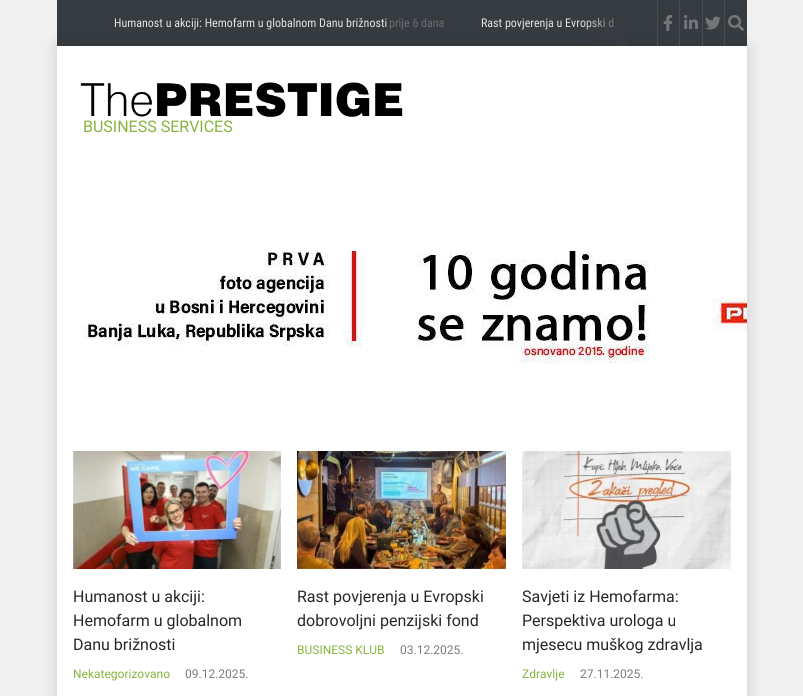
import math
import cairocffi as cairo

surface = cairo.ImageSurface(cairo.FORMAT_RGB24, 803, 696)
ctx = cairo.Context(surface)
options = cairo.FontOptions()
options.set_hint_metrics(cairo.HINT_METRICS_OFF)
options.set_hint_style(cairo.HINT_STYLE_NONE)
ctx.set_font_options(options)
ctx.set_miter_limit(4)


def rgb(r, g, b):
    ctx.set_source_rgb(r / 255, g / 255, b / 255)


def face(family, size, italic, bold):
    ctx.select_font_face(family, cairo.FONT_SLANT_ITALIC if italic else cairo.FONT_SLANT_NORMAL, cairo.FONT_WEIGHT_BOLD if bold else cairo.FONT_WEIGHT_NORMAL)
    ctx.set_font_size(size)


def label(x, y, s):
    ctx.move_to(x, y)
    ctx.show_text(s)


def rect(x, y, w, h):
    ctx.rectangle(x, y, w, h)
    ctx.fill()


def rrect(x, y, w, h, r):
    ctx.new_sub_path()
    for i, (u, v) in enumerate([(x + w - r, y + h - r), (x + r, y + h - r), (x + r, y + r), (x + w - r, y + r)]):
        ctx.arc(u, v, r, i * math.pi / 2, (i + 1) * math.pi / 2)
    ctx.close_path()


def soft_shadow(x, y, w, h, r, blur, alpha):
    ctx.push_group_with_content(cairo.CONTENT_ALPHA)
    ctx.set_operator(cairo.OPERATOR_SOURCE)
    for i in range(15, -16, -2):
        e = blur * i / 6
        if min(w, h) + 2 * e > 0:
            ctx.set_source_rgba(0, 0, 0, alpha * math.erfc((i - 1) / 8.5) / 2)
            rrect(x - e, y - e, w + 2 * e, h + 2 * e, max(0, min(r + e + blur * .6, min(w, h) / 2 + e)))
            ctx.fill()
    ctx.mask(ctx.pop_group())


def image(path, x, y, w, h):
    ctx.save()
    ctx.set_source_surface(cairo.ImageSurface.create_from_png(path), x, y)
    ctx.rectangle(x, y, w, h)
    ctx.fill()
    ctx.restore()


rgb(240, 240, 240)
ctx.paint()
rgb(54, 59, 64)
rect(57, 0, 690, 46)
rgb(0, 0, 0)
soft_shadow(57, 46, 690, 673, 0, 7.5, 0.15)
face('Roboto Condensed', 12, 0, 0)
rgb(225, 226, 226)
label(114, 27, 'Humanost u akciji: Hemofarm u globalnom Danu brižnosti')
rgb(104, 108, 112)
label(389, 27, 'prije 6 dana')
rgb(225, 226, 226)
label(481, 27, 'Rast povjerenja u Evropski d')
gradient = cairo.LinearGradient(57, 23, 103, 23)
gradient.add_color_stop_rgba(0, 0.212, 0.231, 0.251, 1)
gradient.add_color_stop_rgba(1, 0.212, 0.231, 0.251, 0)
ctx.set_source(gradient)
rect(59, 42, 21, 4)
gradient = cairo.LinearGradient(628, 23, 582, 23)
gradient.add_color_stop_rgba(0, 0.212, 0.231, 0.251, 1)
gradient.add_color_stop_rgba(1, 0.212, 0.231, 0.251, 0)
ctx.set_source(gradient)
rect(583, 18, 45, 28)
rgb(70, 77, 83)
rect(657, 0, 1, 46)
image('image0.png', 663, 15, 10, 16)
rect(679, 0, 1, 46)
image('image1.png', 684, 15, 14, 14)
rect(702, 0, 1, 46)
image('image2.png', 705, 16, 16, 14)
rect(724, 0, 1, 46)
image('image3.png', 728, 15, 16, 16)
rgb(255, 255, 255)
rect(57, 46, 690, 650)
image('image4.png', 80, 82, 323, 35)
face('Roboto', 16, 0, 0)
rgb(133, 181, 62)
label(83, 132, 'BUSINESS SERVICES')
image('image5.png', 81, 250, 666, 114)
image('image6.png', 73, 451, 208, 118)
rgb(37, 40, 42)
label(73, 602, 'Humanost u akciji:')
label(73, 626, 'Hemofarm u globalnom')
label(73, 650, 'Danu brižnosti')
face('Roboto', 12, 0, 0)
rgb(133, 181, 62)
label(73, 678, 'Nekategorizovano')
rgb(124, 124, 124)
label(185, 678, '09.12.2025.')
image('image7.png', 297, 451, 209, 118)
face('Roboto', 16, 0, 0)
rgb(37, 40, 42)
label(297, 602, 'Rast povjerenja u Evropski')
label(297, 626, 'dobrovoljni penzijski fond')
face('Roboto', 12, 0, 0)
rgb(133, 181, 62)
label(297, 654, 'BUSINESS KLUB')
rgb(124, 124, 124)
label(400, 654, '03.12.2025.')
image('image8.png', 522, 451, 209, 118)
face('Roboto', 16, 0, 0)
rgb(37, 40, 42)
label(522, 602, 'Savjeti iz Hemofarma:')
label(522, 626, 'Perspektiva urologa u')
label(522, 650, 'mjesecu muškog zdravlja')
face('Roboto', 12, 0, 0)
rgb(133, 181, 62)
label(522, 678, 'Zdravlje')
rgb(124, 124, 124)
label(580, 678, '27.11.2025.')
surface.write_to_png('render.png')
